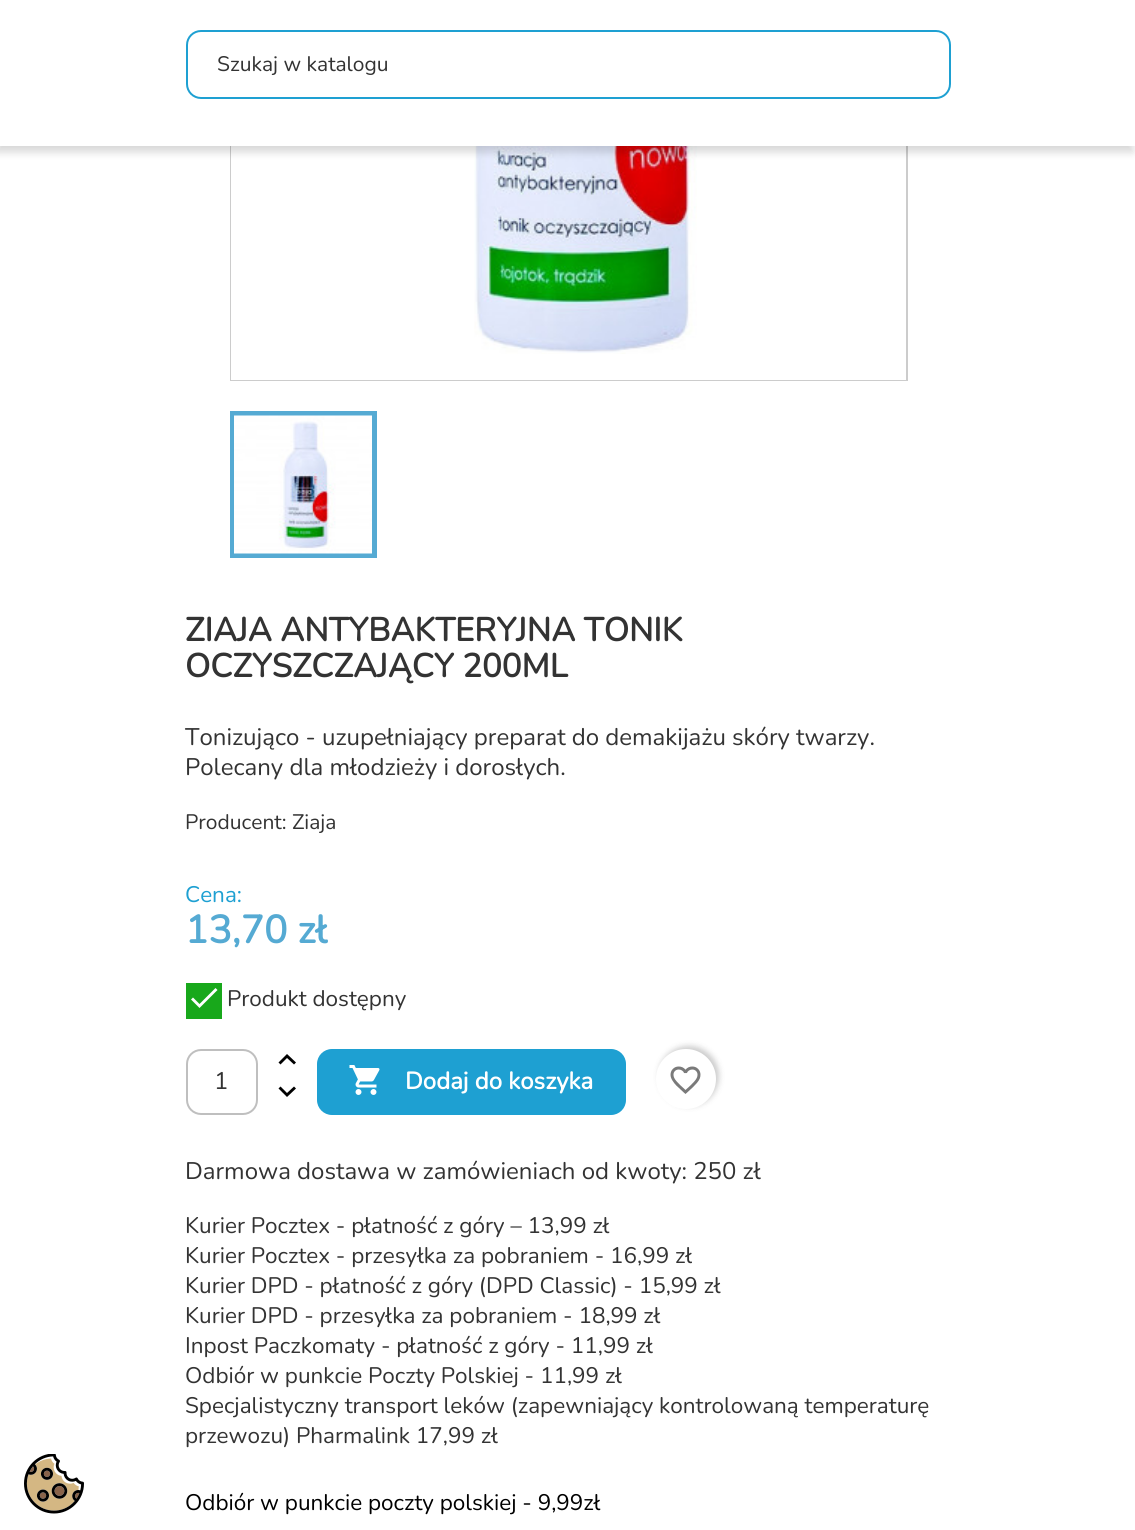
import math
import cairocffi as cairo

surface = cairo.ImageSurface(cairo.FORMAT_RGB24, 1135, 1530)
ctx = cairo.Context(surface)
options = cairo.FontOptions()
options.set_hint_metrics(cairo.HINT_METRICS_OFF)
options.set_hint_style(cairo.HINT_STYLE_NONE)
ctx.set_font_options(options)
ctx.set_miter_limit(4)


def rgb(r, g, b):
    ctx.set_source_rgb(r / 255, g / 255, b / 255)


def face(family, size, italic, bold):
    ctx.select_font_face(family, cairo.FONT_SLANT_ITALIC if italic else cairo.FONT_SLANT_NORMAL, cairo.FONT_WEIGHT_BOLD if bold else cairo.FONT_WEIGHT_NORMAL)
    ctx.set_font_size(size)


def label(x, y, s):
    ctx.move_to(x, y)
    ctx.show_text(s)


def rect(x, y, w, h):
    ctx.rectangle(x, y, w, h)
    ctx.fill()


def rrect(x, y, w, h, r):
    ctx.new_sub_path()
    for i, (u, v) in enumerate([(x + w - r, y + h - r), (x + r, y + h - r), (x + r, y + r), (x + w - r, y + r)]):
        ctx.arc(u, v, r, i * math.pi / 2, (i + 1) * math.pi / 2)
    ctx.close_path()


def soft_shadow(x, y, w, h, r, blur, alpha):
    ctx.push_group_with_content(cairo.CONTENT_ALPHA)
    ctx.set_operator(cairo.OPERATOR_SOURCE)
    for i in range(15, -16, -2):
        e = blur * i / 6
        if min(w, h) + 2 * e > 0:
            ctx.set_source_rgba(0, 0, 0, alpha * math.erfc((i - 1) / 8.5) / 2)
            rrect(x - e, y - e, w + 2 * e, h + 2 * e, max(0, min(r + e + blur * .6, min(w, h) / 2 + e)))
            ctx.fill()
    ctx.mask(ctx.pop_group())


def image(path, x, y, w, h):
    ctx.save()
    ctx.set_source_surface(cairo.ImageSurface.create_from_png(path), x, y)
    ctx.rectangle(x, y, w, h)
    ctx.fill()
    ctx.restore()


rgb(255, 255, 255)
ctx.paint()
image('image0.png', 24, 1454, 60, 60)
ctx.rectangle(231, -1, 676, 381)
rgb(204, 204, 204)
ctx.stroke()
rgb(255, 255, 255)
rect(231, 146, 675, 234)
image('image1.png', 474, 146, 223, 208)
rgb(0, 0, 0)
soft_shadow(-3, 6, 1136, 146, 0, 4.5, 0.16)
rgb(255, 255, 255)
rect(0, 0, 1135, 146)
rrect(187, 31, 763, 67, 14)
rgb(30, 160, 210)
ctx.stroke()
face('Nunito ExtraLight', 21, 0, 0)
rgb(51, 51, 51)
label(217, 71, 'Szukaj w katalogu')
ctx.rectangle(232.5, 413.5, 142, 142)
rgb(85, 170, 211)
ctx.set_line_width(5)
ctx.stroke()
image('image2.png', 234, 415, 138, 139)
face('Nunito', 33, 0, 1)
rgb(51, 51, 51)
label(185, 641, 'ZIAJA ANTYBAKTERYJNA TONIK')
label(185, 677, 'OCZYSZCZAJĄCY 200ML')
face('Nunito ExtraLight', 24, 0, 0)
label(185, 745, 'Tonizująco - uzupełniający preparat do demakijażu skóry twarzy.')
label(185, 775, 'Polecany dla młodzieży i dorosłych.')
face('Nunito ExtraLight', 21, 0, 0)
label(185, 829, 'Producent: Ziaja')
face('Nunito ExtraLight', 22.5, 0, 0)
rgb(30, 160, 210)
label(185, 902, 'Cena:')
face('Nunito', 39, 0, 1)
rgb(85, 170, 211)
label(185, 943, '13,70 zł')
rgb(24, 168, 27)
rect(186, 983, 36, 36)
rgb(255, 255, 255)
ctx.new_path()
ctx.move_to(199.5, 1004)
ctx.line_to(215.5, 988)
ctx.line_to(217.5, 990)
ctx.line_to(199.5, 1008)
ctx.line_to(191, 999.5)
ctx.line_to(193, 997.5)
ctx.close_path()
ctx.fill()
face('Nunito ExtraLight', 22.5, 0, 0)
rgb(51, 51, 51)
label(227, 1006, 'Produkt dostępny')
rrect(187, 1050, 70, 64, 14)
rgb(191, 191, 191)
ctx.set_line_width(2)
ctx.stroke()
face('Nunito ExtraLight', 24, 0, 0)
rgb(51, 51, 51)
label(214, 1089, '1')
rgb(0, 0, 0)
ctx.new_path()
ctx.move_to(287, 1054)
ctx.line_to(296, 1062.5)
ctx.line_to(294, 1064.5)
ctx.line_to(287, 1058)
ctx.line_to(280.5, 1064.5)
ctx.line_to(278.5, 1062.5)
ctx.close_path()
ctx.move_to(294, 1086.5)
ctx.line_to(296, 1088.5)
ctx.line_to(287, 1097)
ctx.line_to(278.5, 1088.5)
ctx.line_to(280.5, 1086.5)
ctx.line_to(287, 1093)
ctx.close_path()
ctx.fill()
rgb(30, 160, 210)
rrect(317, 1049, 309, 66, 15)
ctx.fill()
image('image3.png', 349, 1065, 31, 30)
face('Nunito', 24, 0, 1)
rgb(255, 255, 255)
label(405, 1089, 'Dodaj do koszyka')
rgb(0, 0, 0)
soft_shadow(659, 1046, 60, 60, 30, 3, 0.2)
rgb(255, 255, 255)
ctx.arc(686, 1079, 30, 0, 2 * math.pi)
ctx.fill()
image('image4.png', 670, 1066, 31, 28)
face('Nunito ExtraLight', 24, 0, 0)
rgb(51, 51, 51)
label(185, 1179, 'Darmowa dostawa w zamówieniach od kwoty: 250 zł')
face('Nunito ExtraLight', 22.5, 0, 0)
label(185, 1233, 'Kurier Pocztex - płatność z góry – 13,99 zł')
label(185, 1263, 'Kurier Pocztex - przesyłka za pobraniem - 16,99 zł')
label(185, 1293, 'Kurier DPD - płatność z góry (DPD Classic) - 15,99 zł')
label(185, 1323, 'Kurier DPD - przesyłka za pobraniem - 18,99 zł')
label(185, 1353, 'Inpost Paczkomaty - płatność z góry - 11,99 zł')
label(185, 1383, 'Odbiór w punkcie Poczty Polskiej - 11,99 zł')
label(185, 1413, 'Specjalistyczny transport leków (zapewniający kontrolowaną temperaturę')
label(185, 1443, 'przewozu) Pharmalink 17,99 zł')
rgb(0, 0, 0)
label(185, 1510, 'Odbiór w punkcie poczty polskiej - 9,99zł')
surface.write_to_png('render.png')
